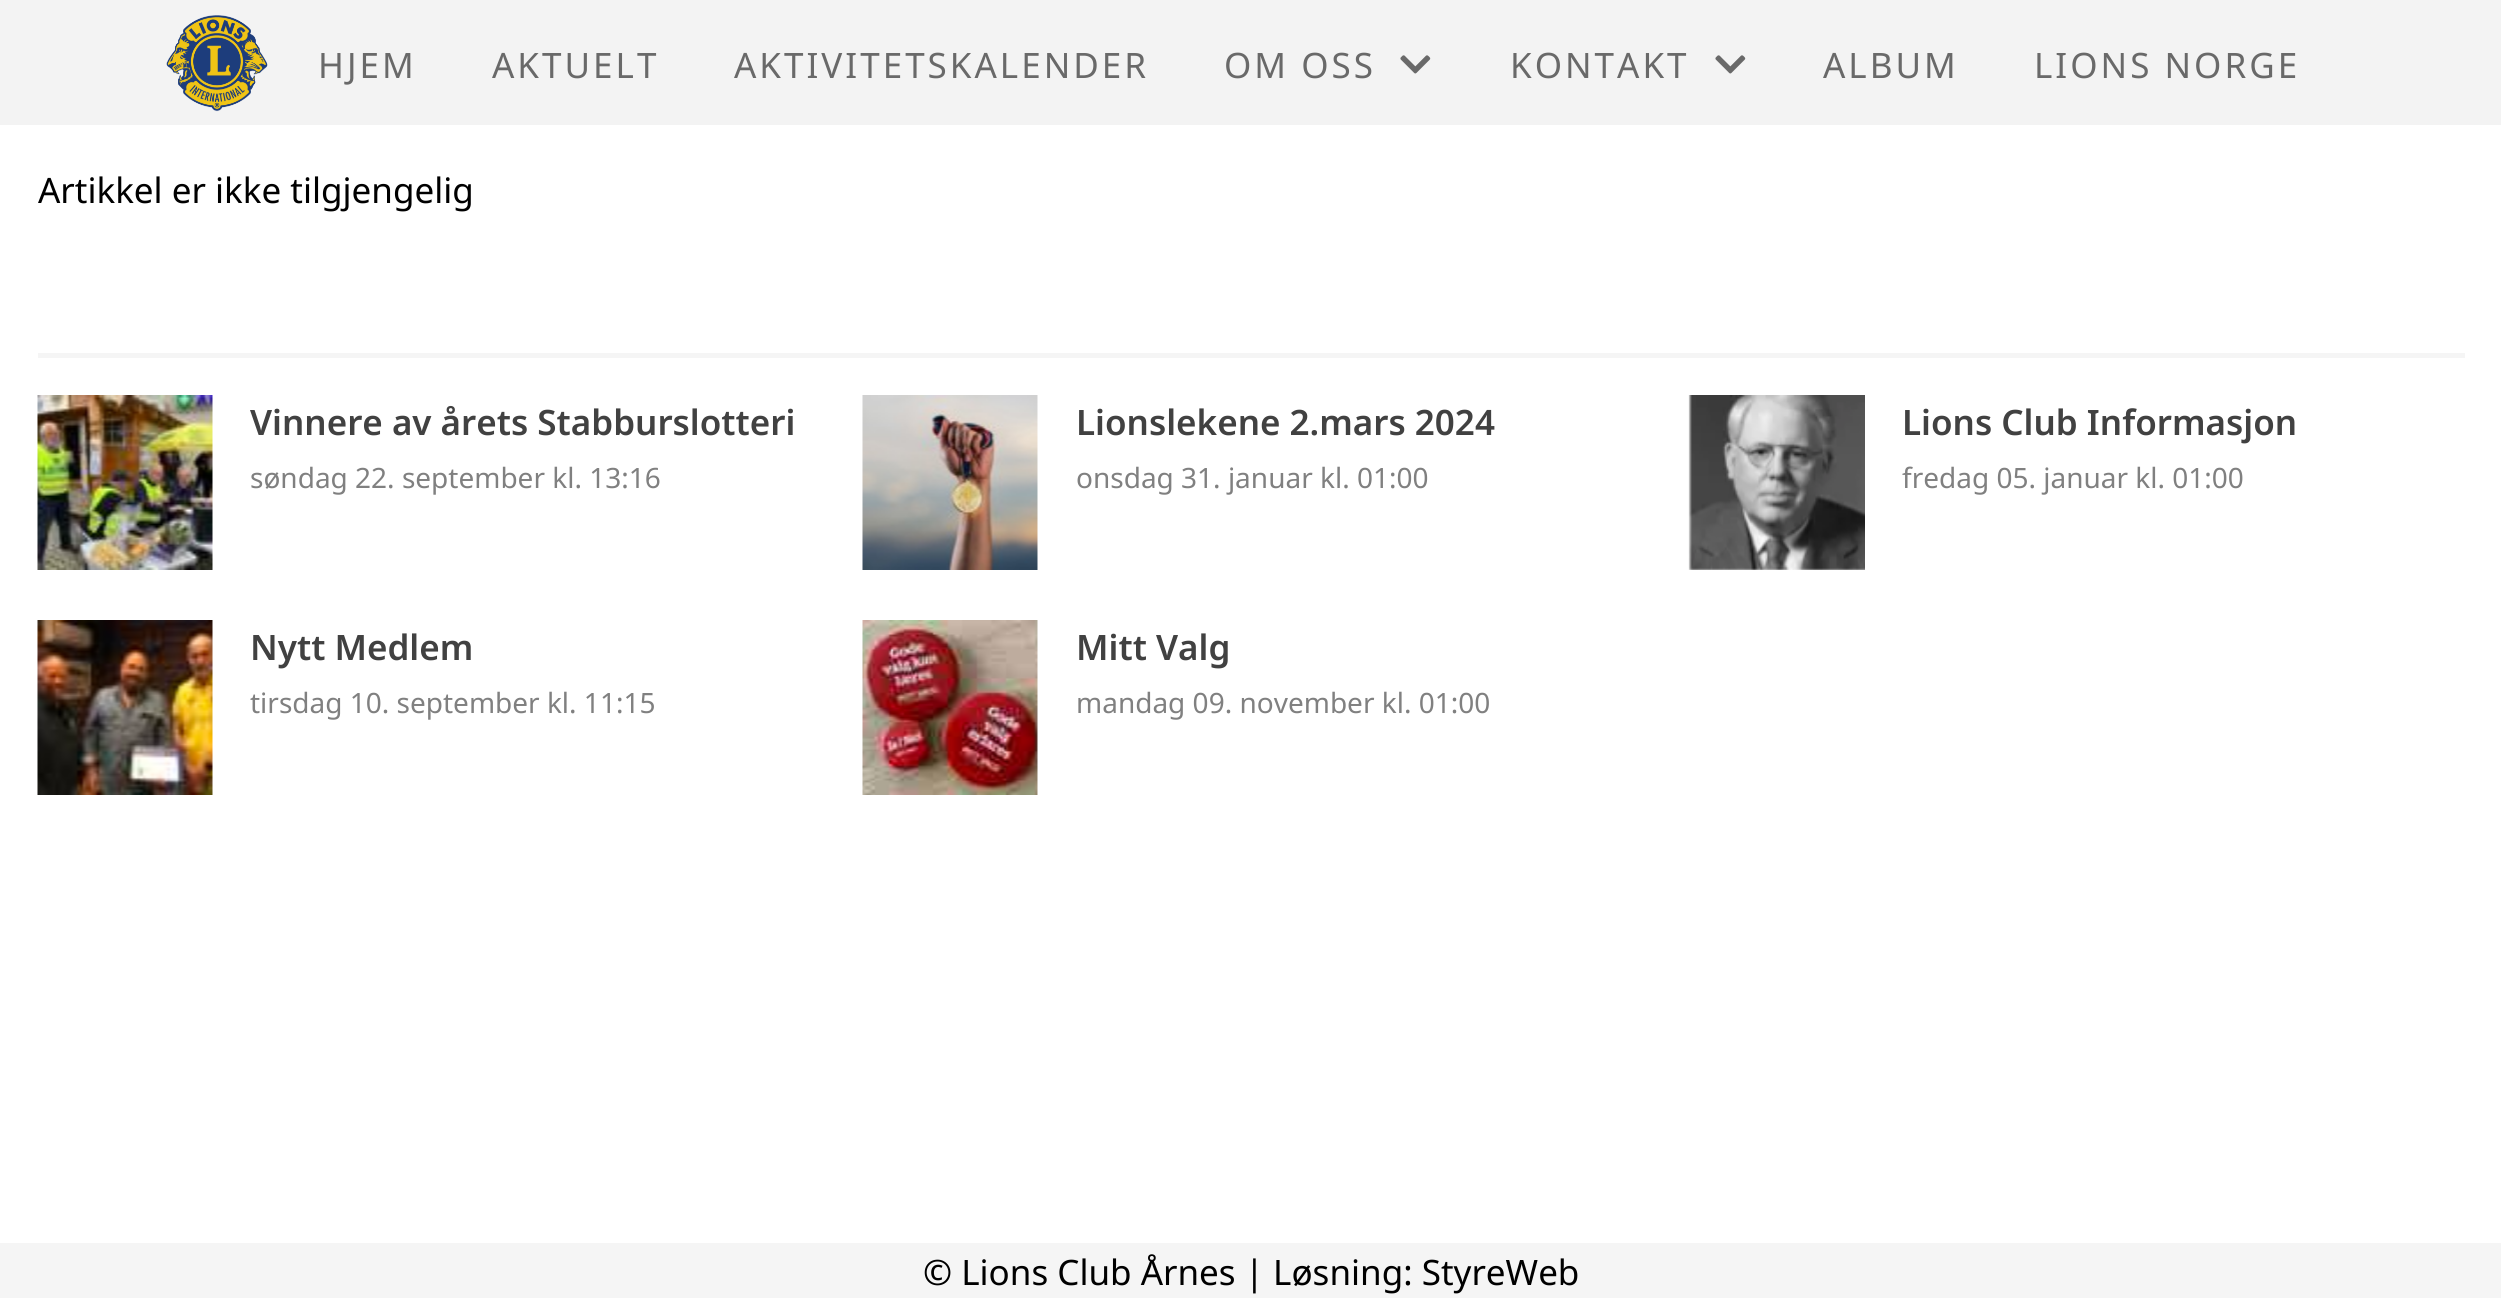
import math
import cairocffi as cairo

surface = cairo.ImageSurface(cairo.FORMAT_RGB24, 2501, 1298)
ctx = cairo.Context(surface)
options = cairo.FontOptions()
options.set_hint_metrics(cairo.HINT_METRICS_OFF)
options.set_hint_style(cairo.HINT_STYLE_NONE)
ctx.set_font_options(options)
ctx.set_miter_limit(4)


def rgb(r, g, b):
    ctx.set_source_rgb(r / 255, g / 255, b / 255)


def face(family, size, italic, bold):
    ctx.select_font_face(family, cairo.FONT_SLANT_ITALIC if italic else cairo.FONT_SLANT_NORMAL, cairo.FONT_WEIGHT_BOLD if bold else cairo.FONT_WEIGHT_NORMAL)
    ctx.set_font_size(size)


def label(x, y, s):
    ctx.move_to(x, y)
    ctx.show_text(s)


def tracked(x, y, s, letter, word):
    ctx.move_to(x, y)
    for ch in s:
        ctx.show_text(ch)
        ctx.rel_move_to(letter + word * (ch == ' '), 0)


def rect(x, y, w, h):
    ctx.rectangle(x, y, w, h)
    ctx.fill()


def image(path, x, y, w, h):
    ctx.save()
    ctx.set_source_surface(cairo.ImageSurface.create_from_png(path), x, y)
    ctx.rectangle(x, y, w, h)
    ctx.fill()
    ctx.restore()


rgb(255, 255, 255)
ctx.paint()
rgb(243, 243, 243)
rect(0, 0, 2501, 125)
image('image0.png', 166, 15, 102, 97)
face('Noto Sans', 35, 0, 0)
rgb(105, 105, 105)
tracked(318, 78, 'HJEM', 3, 0)
tracked(492, 78, 'AKTUELT', 3, 0)
tracked(734, 78, 'AKTIVITETSKALENDER', 3, 0)
tracked(1224, 78, 'OM OSS', 3, 0)
image('image1.png', 1400, 55, 31, 19)
tracked(1510, 78, 'KONTAKT', 3, 0)
image('image1.png', 1715, 55, 31, 19)
tracked(1823, 78, 'ALBUM', 3, 0)
tracked(2034, 78, 'LIONS NORGE', 3, 0)
rgb(0, 0, 0)
label(38, 203, 'Artikkel er ikke tilgjengelig')
rgb(245, 245, 245)
rect(38, 353, 2427, 5)
image('image2.png', 37, 395, 176, 175)
face('Noto Sans SemiBold', 35, 0, 0)
rgb(65, 65, 65)
label(250, 435, 'Vinnere av årets Stabburslotteri')
face('Noto Sans', 28, 0, 0)
rgb(128, 128, 128)
label(250, 488, 'søndag 22. september kl. 13:16')
image('image3.png', 862, 395, 176, 175)
face('Noto Sans SemiBold', 35, 0, 0)
rgb(65, 65, 65)
label(1076, 435, 'Lionslekene 2.mars 2024')
face('Noto Sans', 28, 0, 0)
rgb(128, 128, 128)
label(1076, 488, 'onsdag 31. januar kl. 01:00')
image('image4.png', 1688, 395, 177, 175)
face('Noto Sans SemiBold', 35, 0, 0)
rgb(65, 65, 65)
label(1902, 435, 'Lions Club Informasjon')
face('Noto Sans', 28, 0, 0)
rgb(128, 128, 128)
label(1902, 488, 'fredag 05. januar kl. 01:00')
image('image5.png', 37, 620, 176, 175)
face('Noto Sans SemiBold', 35, 0, 0)
rgb(65, 65, 65)
label(250, 660, 'Nytt Medlem')
face('Noto Sans', 28, 0, 0)
rgb(128, 128, 128)
label(250, 713, 'tirsdag 10. september kl. 11:15')
image('image6.png', 862, 620, 176, 175)
face('Noto Sans SemiBold', 35, 0, 0)
rgb(65, 65, 65)
label(1076, 660, 'Mitt Valg')
face('Noto Sans', 28, 0, 0)
rgb(128, 128, 128)
label(1076, 713, 'mandag 09. november kl. 01:00')
rgb(245, 245, 245)
rect(0, 1243, 2501, 55)
face('Noto Sans', 35, 0, 0)
rgb(0, 0, 0)
label(923, 1285, '© Lions Club Årnes | Løsning: StyreWeb')
surface.write_to_png('render.png')
